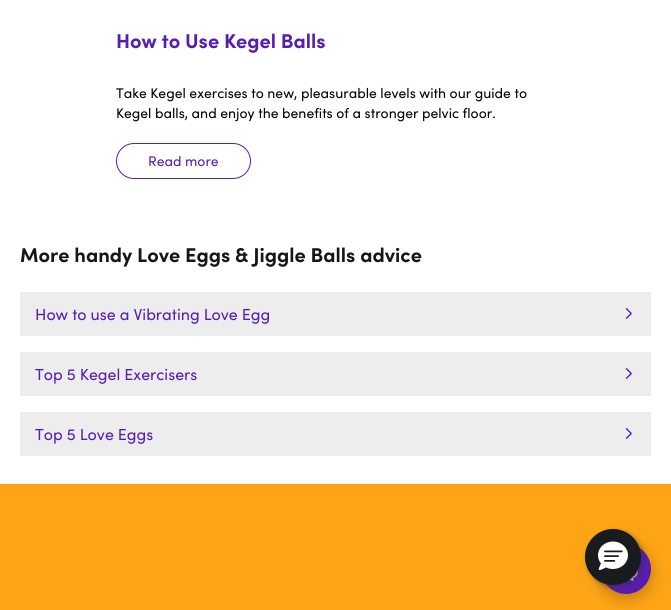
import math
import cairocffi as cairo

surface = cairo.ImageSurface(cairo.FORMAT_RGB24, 671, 610)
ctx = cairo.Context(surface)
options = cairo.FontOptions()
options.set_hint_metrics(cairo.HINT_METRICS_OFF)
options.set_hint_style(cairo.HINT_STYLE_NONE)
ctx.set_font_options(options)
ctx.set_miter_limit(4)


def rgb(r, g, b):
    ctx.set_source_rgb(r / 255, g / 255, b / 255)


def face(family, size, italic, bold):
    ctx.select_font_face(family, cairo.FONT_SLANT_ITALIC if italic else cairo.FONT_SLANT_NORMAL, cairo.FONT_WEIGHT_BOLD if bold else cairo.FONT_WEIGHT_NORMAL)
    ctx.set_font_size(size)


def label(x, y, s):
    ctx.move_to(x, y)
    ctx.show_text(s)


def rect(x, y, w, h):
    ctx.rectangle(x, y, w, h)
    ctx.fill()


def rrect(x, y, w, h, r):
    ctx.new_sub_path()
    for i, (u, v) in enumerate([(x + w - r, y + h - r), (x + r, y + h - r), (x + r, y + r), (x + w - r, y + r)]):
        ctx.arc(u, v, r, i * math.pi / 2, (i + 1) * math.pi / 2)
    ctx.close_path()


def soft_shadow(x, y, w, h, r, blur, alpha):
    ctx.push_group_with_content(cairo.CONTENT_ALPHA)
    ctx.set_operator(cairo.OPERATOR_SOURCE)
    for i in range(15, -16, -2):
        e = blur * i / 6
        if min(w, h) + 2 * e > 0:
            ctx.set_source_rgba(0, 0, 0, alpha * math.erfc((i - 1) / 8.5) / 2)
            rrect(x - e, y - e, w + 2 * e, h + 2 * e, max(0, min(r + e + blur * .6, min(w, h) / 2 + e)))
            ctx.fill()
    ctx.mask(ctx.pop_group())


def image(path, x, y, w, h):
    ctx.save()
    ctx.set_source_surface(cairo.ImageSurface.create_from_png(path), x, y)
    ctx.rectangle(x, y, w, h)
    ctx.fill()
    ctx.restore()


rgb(255, 255, 255)
ctx.paint()
face('Sofia', 20, 0, 1)
rgb(87, 29, 174)
label(116, 48, 'How to Use Kegel Balls')
face('Sofia', 14, 0, 0)
rgb(0, 0, 0)
label(116, 98, 'Take Kegel exercises to new, pleasurable levels with our guide to')
label(116, 118, 'Kegel balls, and enjoy the benefits of a stronger pelvic floor.')
rrect(116.5, 143.5, 134, 35, 17.5)
rgb(87, 29, 174)
ctx.set_line_width(1)
ctx.stroke()
label(148, 166, 'Read more')
face('Sofia', 20, 0, 1)
rgb(22, 22, 21)
label(20, 262, 'More handy Love Eggs & Jiggle Balls advice')
rgb(237, 237, 237)
rect(20, 292, 631, 44)
face('Sofia', 16, 0, 0)
rgb(87, 29, 174)
label(35, 320, 'How to use a Vibrating Love Egg')
image('image0.png', 625, 308, 7, 11)
rgb(237, 237, 237)
rect(20, 352, 631, 44)
rgb(87, 29, 174)
label(35, 380, 'Top 5 Kegel Exercisers')
image('image0.png', 625, 368, 7, 11)
rgb(237, 237, 237)
rect(20, 412, 631, 44)
rgb(87, 29, 174)
label(35, 440, 'Top 5 Love Eggs')
image('image0.png', 625, 428, 7, 11)
rgb(255, 165, 21)
rect(0, 484, 671, 126)
rgb(0, 0, 0)
soft_shadow(601, 548, 50, 50, 25, 8, 0.25)
rgb(87, 29, 174)
ctx.arc(626, 569, 25, 0, 2 * math.pi)
ctx.fill()
image('image2.png', 629, 569, 9, 12)
rgb(45, 45, 45)
soft_shadow(587, 531, 56, 56, 28, 2.5, 0.5)
rgb(26, 27, 30)
ctx.arc(613, 557, 28, 0, 2 * math.pi)
ctx.fill()
image('image1.png', 598, 541, 30, 29)
surface.write_to_png('render.png')
